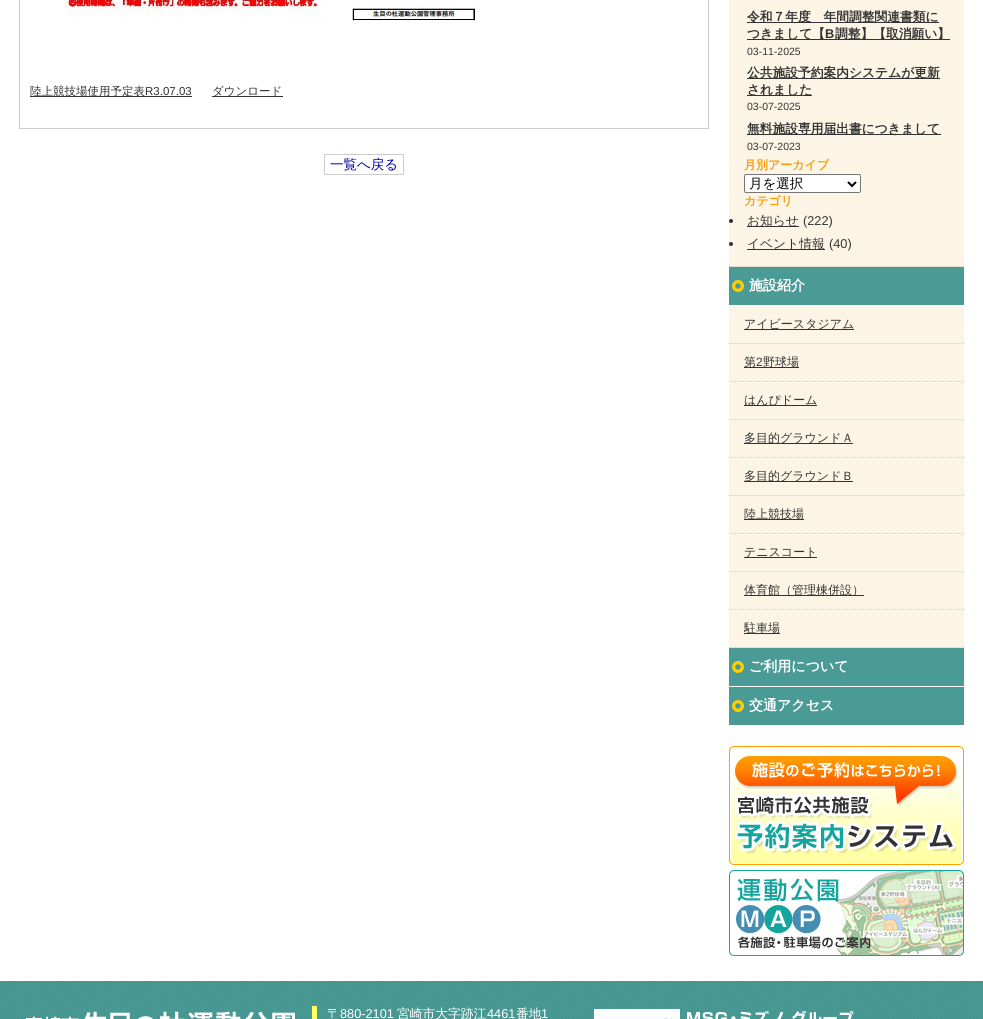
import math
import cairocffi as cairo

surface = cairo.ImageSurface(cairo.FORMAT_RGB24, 983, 1019)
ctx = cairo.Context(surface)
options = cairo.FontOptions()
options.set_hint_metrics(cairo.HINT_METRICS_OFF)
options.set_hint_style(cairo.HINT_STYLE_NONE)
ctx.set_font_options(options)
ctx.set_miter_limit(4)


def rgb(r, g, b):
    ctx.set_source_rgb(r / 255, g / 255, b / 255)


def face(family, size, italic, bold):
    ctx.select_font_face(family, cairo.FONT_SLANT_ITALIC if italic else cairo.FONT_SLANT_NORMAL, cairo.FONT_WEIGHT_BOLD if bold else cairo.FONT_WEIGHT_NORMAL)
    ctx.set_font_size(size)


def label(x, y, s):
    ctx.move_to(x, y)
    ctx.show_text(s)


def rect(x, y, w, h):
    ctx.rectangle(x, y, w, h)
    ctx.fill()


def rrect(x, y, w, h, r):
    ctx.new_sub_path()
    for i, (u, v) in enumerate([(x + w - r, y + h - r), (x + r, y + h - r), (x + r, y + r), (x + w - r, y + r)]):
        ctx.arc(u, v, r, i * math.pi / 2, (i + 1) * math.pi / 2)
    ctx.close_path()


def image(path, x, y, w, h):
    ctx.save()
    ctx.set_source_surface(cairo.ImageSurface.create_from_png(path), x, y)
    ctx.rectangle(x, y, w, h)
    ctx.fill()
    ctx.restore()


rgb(255, 255, 255)
ctx.paint()
ctx.rectangle(19.5, -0.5, 689, 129)
rgb(204, 204, 204)
ctx.set_line_width(1)
ctx.stroke()
image('image0.png', 57, 0, 423, 22)
rgb(51, 51, 51)
rect(30, 96, 162, 1)
face('WenQuanYi Zen Hei Medium', 11.5, 0, 0)
label(30, 95, '陸上競技場使用予定表')
face('Liberation Sans', 11.5, 0, 0)
label(145, 95, 'R3.07.03')
rect(212, 96, 71, 1)
face('WenQuanYi Zen Hei Medium', 11.5, 0, 0)
label(212, 95, 'ダウンロード')
ctx.rectangle(324.5, 154.5, 79, 20)
rgb(204, 204, 204)
ctx.stroke()
face('WenQuanYi Zen Hei Medium', 13.5, 0, 0)
rgb(0, 1, 155)
label(330, 169, '一覧へ戻る')
rgb(74, 154, 150)
rect(729, 267, 235, 458)
rgb(252, 245, 229)
rect(729, 0, 235, 267)
ctx.new_path()
ctx.move_to(729, 266.5)
ctx.line_to(964, 266.5)
rgb(204, 204, 204)
ctx.set_dash([1, 1])
ctx.stroke()
rgb(51, 51, 51)
rect(747, 22, 192, 1)
face('WenQuanYi Zen Hei', 12.75, 0, 1)
label(747, 21, '令和７年度　年間調整関連書類に')
rect(747, 39, 203, 1)
label(747, 38, 'つきまして【')
face('Liberation Sans', 12.75, 0, 1)
label(825, 38, 'B')
face('WenQuanYi Zen Hei', 12.75, 0, 1)
label(835, 38, '調整】【取消願い】')
face('Liberation Sans', 10.5, 0, 0)
label(747, 55, '03-11-2025')
rect(747, 78, 193, 1)
face('WenQuanYi Zen Hei', 12.75, 0, 1)
label(747, 77, '公共施設予約案内システムが更新')
rect(747, 95, 65, 1)
label(747, 94, 'されました')
face('Liberation Sans', 10.5, 0, 0)
label(747, 110, '03-07-2025')
rect(747, 134, 194, 1)
face('WenQuanYi Zen Hei', 12.75, 0, 1)
label(747, 133, '無料施設専用届出書につきまして')
face('Liberation Sans', 10.5, 0, 0)
label(747, 150, '03-07-2023')
face('WenQuanYi Zen Hei', 12, 0, 1)
rgb(255, 153, 0)
label(744, 169, '月別アーカイブ')
rgb(255, 255, 255)
rrect(744.5, 174.5, 116, 18, 1.5)
ctx.fill_preserve()
rgb(118, 118, 118)
ctx.set_dash([])
ctx.stroke()
ctx.new_path()
ctx.move_to(848, 182)
ctx.line_to(852, 186)
ctx.line_to(856, 182)
rgb(0, 0, 0)
ctx.set_line_width(2)
ctx.stroke()
face('WenQuanYi Zen Hei Medium', 13.5, 0, 0)
label(749, 188, '月を選択')
face('WenQuanYi Zen Hei', 12, 0, 1)
rgb(255, 153, 0)
label(744, 205, 'カテゴリ')
rgb(51, 51, 51)
ctx.new_path()
ctx.arc(731, 221, 2, 0, 2 * math.pi)
ctx.fill()
rect(747, 226, 52, 1)
face('WenQuanYi Zen Hei Medium', 12.75, 0, 0)
label(747, 225, 'お知らせ')
face('Liberation Sans', 12.75, 0, 0)
label(803, 225, '(222)')
ctx.new_path()
ctx.arc(731, 244, 2, 0, 2 * math.pi)
ctx.fill()
rect(747, 249, 78, 1)
face('WenQuanYi Zen Hei Medium', 12.75, 0, 0)
label(747, 248, 'イベント情報')
face('Liberation Sans', 12.75, 0, 0)
label(829, 248, '(40)')
image('image1.png', 732, 280, 12, 12)
rgb(255, 255, 255)
rect(729, 305, 235, 1)
face('WenQuanYi Zen Hei', 14, 0, 1)
label(749, 290, '施設紹介')
rgb(252, 245, 229)
rect(729, 306, 235, 342)
ctx.new_path()
ctx.move_to(729, 343.5)
ctx.line_to(964, 343.5)
rgb(204, 204, 204)
ctx.set_line_width(1)
ctx.set_dash([1, 1])
ctx.stroke()
rgb(51, 51, 51)
rect(744, 329, 110, 1)
face('WenQuanYi Zen Hei Medium', 12, 0, 0)
label(744, 328, 'アイビースタジアム')
ctx.new_path()
ctx.move_to(729, 381.5)
ctx.line_to(964, 381.5)
rgb(204, 204, 204)
ctx.stroke()
rgb(51, 51, 51)
rect(744, 367, 55, 1)
label(744, 366, '第')
face('Liberation Sans', 12, 0, 0)
label(756, 366, '2')
face('WenQuanYi Zen Hei Medium', 12, 0, 0)
label(763, 366, '野球場')
ctx.new_path()
ctx.move_to(729, 419.5)
ctx.line_to(964, 419.5)
rgb(204, 204, 204)
ctx.stroke()
rgb(51, 51, 51)
rect(744, 405, 73, 1)
label(744, 404, 'はんぴドーム')
ctx.new_path()
ctx.move_to(729, 457.5)
ctx.line_to(964, 457.5)
rgb(204, 204, 204)
ctx.stroke()
rgb(51, 51, 51)
rect(744, 443, 109, 1)
label(744, 442, '多目的グラウンドＡ')
ctx.new_path()
ctx.move_to(729, 495.5)
ctx.line_to(964, 495.5)
rgb(204, 204, 204)
ctx.stroke()
rgb(51, 51, 51)
rect(744, 481, 109, 1)
label(744, 480, '多目的グラウンドＢ')
ctx.new_path()
ctx.move_to(729, 533.5)
ctx.line_to(964, 533.5)
rgb(204, 204, 204)
ctx.stroke()
rgb(51, 51, 51)
rect(744, 519, 60, 1)
label(744, 518, '陸上競技場')
ctx.new_path()
ctx.move_to(729, 571.5)
ctx.line_to(964, 571.5)
rgb(204, 204, 204)
ctx.stroke()
rgb(51, 51, 51)
rect(744, 557, 73, 1)
label(744, 556, 'テニスコート')
ctx.new_path()
ctx.move_to(729, 609.5)
ctx.line_to(964, 609.5)
rgb(204, 204, 204)
ctx.stroke()
rgb(51, 51, 51)
rect(744, 595, 120, 1)
label(744, 594, '体育館（管理棟併設）')
ctx.new_path()
ctx.move_to(729, 647.5)
ctx.line_to(964, 647.5)
rgb(204, 204, 204)
ctx.stroke()
rgb(51, 51, 51)
rect(744, 633, 36, 1)
label(744, 632, '駐車場')
image('image1.png', 732, 661, 12, 12)
rgb(255, 255, 255)
rect(729, 686, 235, 1)
face('WenQuanYi Zen Hei', 14, 0, 1)
label(749, 671, 'ご利用について')
image('image1.png', 732, 700, 12, 12)
label(749, 710, '交通アクセス')
image('image2.png', 729, 746, 235, 119)
image('image3.png', 729, 870, 235, 86)
image('image4.png', 0, 981, 983, 38)
image('image5.png', 26, 1011, 269, 8)
rgb(255, 255, 102)
rect(312, 1006, 5, 13)
face('WenQuanYi Zen Hei Medium', 12.75, 0, 0)
rgb(255, 255, 255)
label(327, 1018, '〒')
face('Liberation Sans', 12.75, 0, 0)
label(340, 1018, '880-2101')
face('WenQuanYi Zen Hei Medium', 12.75, 0, 0)
label(397, 1018, '宮崎市大字跡江')
face('Liberation Sans', 12.75, 0, 0)
label(487, 1018, '4461')
face('WenQuanYi Zen Hei Medium', 12.75, 0, 0)
label(516, 1018, '番地')
face('Liberation Sans', 12.75, 0, 0)
label(541, 1018, '1')
image('image6.png', 594, 1009, 260, 10)
surface.write_to_png('render.png')
